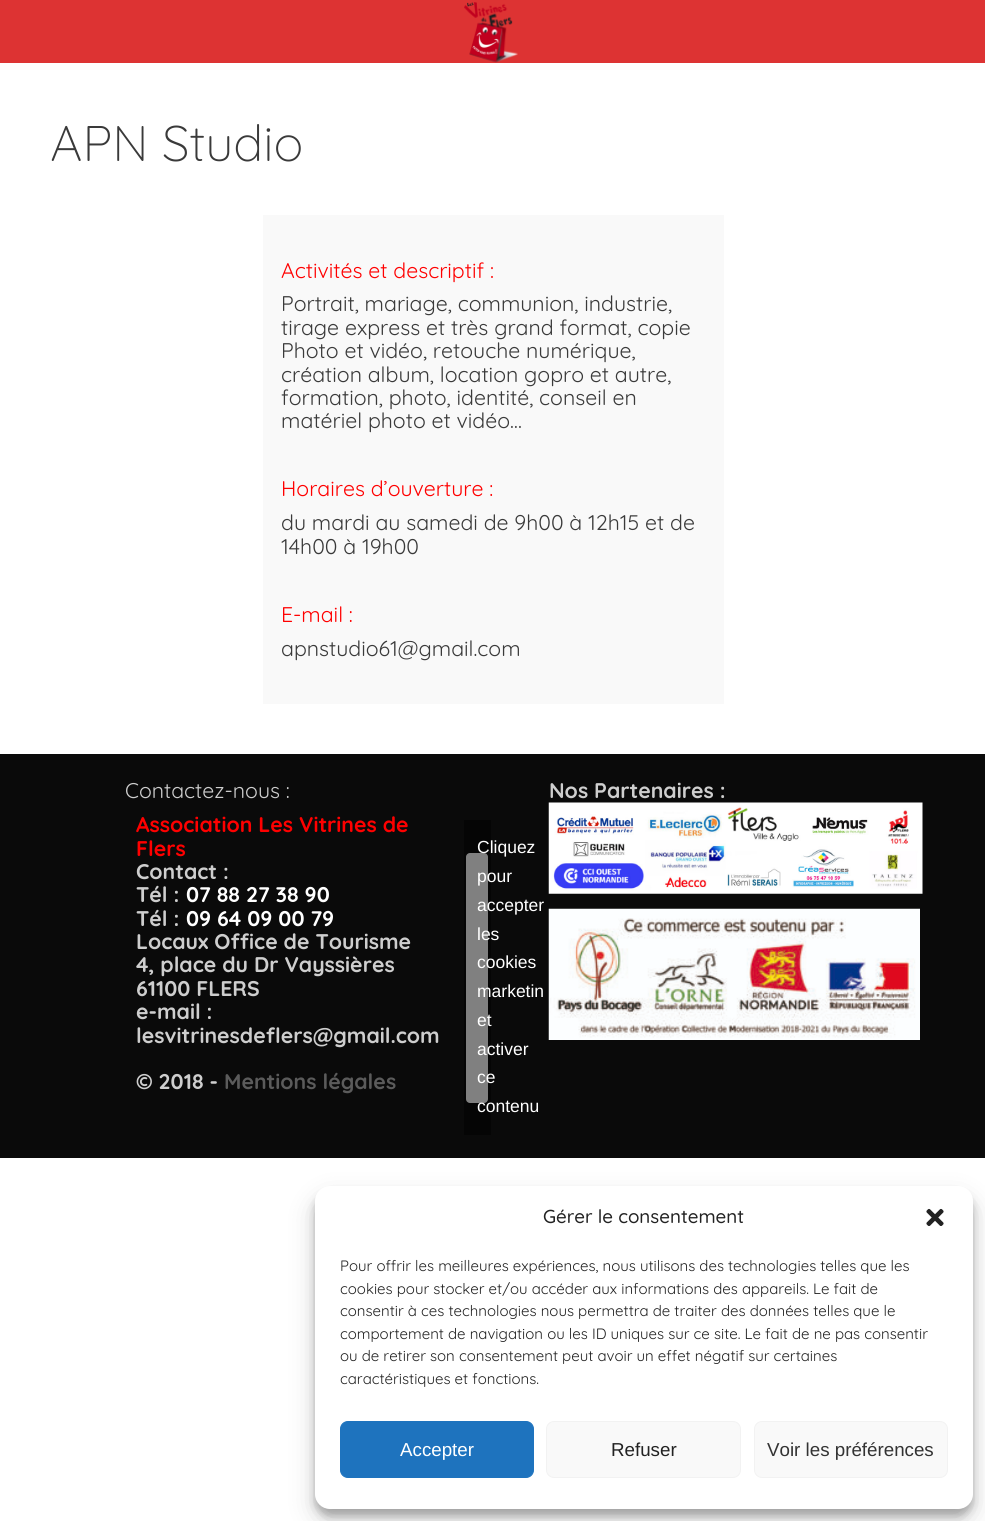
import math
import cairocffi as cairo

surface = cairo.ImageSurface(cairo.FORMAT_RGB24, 985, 1521)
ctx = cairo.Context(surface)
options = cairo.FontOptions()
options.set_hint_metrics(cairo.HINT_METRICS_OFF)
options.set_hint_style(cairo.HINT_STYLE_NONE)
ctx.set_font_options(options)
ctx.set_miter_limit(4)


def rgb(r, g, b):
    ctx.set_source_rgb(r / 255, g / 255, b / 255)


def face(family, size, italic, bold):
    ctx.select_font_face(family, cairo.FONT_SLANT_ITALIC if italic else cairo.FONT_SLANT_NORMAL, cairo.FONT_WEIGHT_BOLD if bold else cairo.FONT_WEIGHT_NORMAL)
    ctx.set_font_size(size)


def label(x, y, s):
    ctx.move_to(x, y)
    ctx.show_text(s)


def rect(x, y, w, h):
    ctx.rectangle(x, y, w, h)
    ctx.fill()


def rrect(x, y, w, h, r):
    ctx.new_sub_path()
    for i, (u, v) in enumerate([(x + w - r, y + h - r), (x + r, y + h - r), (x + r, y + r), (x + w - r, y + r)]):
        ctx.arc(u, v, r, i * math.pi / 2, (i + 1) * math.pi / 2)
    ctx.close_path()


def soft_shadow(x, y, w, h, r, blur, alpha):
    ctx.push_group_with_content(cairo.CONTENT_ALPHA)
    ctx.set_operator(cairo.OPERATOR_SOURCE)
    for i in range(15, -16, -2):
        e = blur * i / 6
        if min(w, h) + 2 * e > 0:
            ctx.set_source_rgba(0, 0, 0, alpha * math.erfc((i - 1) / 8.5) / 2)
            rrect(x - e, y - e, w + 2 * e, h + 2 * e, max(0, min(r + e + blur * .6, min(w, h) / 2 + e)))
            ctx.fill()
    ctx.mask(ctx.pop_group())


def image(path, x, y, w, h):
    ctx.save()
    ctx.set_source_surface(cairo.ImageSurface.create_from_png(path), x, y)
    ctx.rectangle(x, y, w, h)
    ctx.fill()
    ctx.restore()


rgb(255, 255, 255)
ctx.paint()
rgb(221, 51, 51)
rect(0, 0, 985, 63)
image('image0.png', 464, 2, 54, 61)
face('Quicksand Light', 50, 0, 0)
rgb(58, 58, 58)
label(50, 161, 'APN Studio')
rgb(249, 249, 249)
rect(263, 215, 461, 489)
face('Quicksand', 21.25, 0, 0)
rgb(255, 0, 0)
label(281, 278, 'Activités et descriptif :')
rgb(58, 58, 58)
label(281, 311, 'Portrait, mariage, communion, industrie,')
label(281, 335, 'tirage express et très grand format, copie')
label(281, 358, 'Photo et vidéo, retouche numérique,')
label(281, 382, 'création album, location gopro et autre,')
label(281, 405, 'formation, photo, identité, conseil en')
label(281, 428, 'matériel photo et vidéo…')
rgb(255, 0, 0)
label(281, 496, 'Horaires d’ouverture :')
rgb(58, 58, 58)
label(281, 530, 'du mardi au samedi de 9h00 à 12h15 et de')
label(281, 554, '14h00 à 19h00')
rgb(255, 0, 0)
label(281, 622, 'E-mail :')
rgb(58, 58, 58)
label(281, 656, 'apnstudio61@gmail.com')
rgb(10, 10, 10)
rect(0, 754, 985, 404)
rgb(5, 5, 5)
rect(464, 820, 27, 315)
rgb(206, 206, 206)
label(125, 798, 'Contactez-nous :')
face('Quicksand', 21.25, 0, 1)
rgb(255, 0, 0)
label(136, 832, 'Association Les Vitrines de')
label(136, 856, 'Flers')
rgb(206, 206, 206)
label(136, 879, 'Contact :')
label(136, 902, 'Tél :')
rgb(255, 255, 255)
label(186, 902, '07 88 27 38 90')
rgb(206, 206, 206)
label(136, 926, 'Tél :')
rgb(255, 255, 255)
label(186, 926, '09 64 09 00 79')
rgb(206, 206, 206)
label(136, 949, 'Locaux Office de Tourisme')
label(136, 972, '4, place du Dr Vayssières')
label(136, 996, '61100 FLERS')
label(136, 1019, 'e-mail :')
label(136, 1043, 'lesvitrinesdeflers@gmail.com')
label(136, 1089, '© 2018 -')
rgb(91, 91, 91)
label(224, 1089, 'Mentions légales')
rgb(128, 128, 128)
rrect(466, 853, 22, 250, 4)
ctx.fill()
face('Liberation Sans', 17.5, 0, 0)
rgb(255, 255, 255)
label(477, 853, 'Cliquez')
label(477, 882, 'pour')
label(477, 911, 'accepter')
label(477, 940, 'les')
label(477, 968, 'cookies')
label(477, 997, 'marketin')
label(477, 1026, 'et')
label(477, 1055, 'activer')
label(477, 1083, 'ce')
label(477, 1112, 'contenu')
face('Quicksand', 21.25, 0, 1)
rgb(206, 206, 206)
label(549, 798, 'Nos Partenaires :')
image('image1.png', 548, 802, 375, 92)
image('image2.png', 548, 908, 372, 132)
rgb(0, 0, 0)
soft_shadow(315, 1194, 658, 322, 15, 4, 0.23)
soft_shadow(315, 1199, 658, 322, 15, 12.5, 0.19)
rgb(255, 255, 255)
rrect(315, 1186, 658, 323, 15)
ctx.fill()
face('Quicksand Medium', 18.75, 0, 0)
rgb(34, 34, 34)
label(543, 1223, 'Gérer le consentement')
image('image3.png', 926, 1208, 18, 18)
face('Quicksand', 15, 0, 0)
label(340, 1271, 'Pour offrir les meilleures expériences, nous utilisons des technologies telles que les')
label(340, 1294, 'cookies pour stocker et/ou accéder aux informations des appareils. Le fait de')
label(340, 1316, 'consentir à ces technologies nous permettra de traiter des données telles que le')
label(340, 1339, 'comportement de navigation ou les ID uniques sur ce site. Le fait de ne pas consentir')
label(340, 1361, 'ou de retirer son consentement peut avoir un effet négatif sur certaines')
label(340, 1384, 'caractéristiques et fonctions.')
rgb(30, 115, 190)
rrect(340.5, 1421.5, 193, 56, 7.5)
ctx.fill_preserve()
ctx.set_line_width(1)
ctx.stroke()
face('Liberation Sans', 18.75, 0, 0)
rgb(255, 255, 255)
label(400, 1456, 'Accepter')
rgb(249, 249, 249)
rrect(546.5, 1421.5, 194, 56, 7.5)
ctx.fill_preserve()
rgb(242, 242, 242)
ctx.stroke()
rgb(34, 34, 34)
label(611, 1456, 'Refuser')
rgb(249, 249, 249)
rrect(754.5, 1421.5, 193, 56, 7.5)
ctx.fill_preserve()
rgb(242, 242, 242)
ctx.stroke()
rgb(51, 51, 51)
label(767, 1456, 'Voir les préférences')
surface.write_to_png('render.png')
